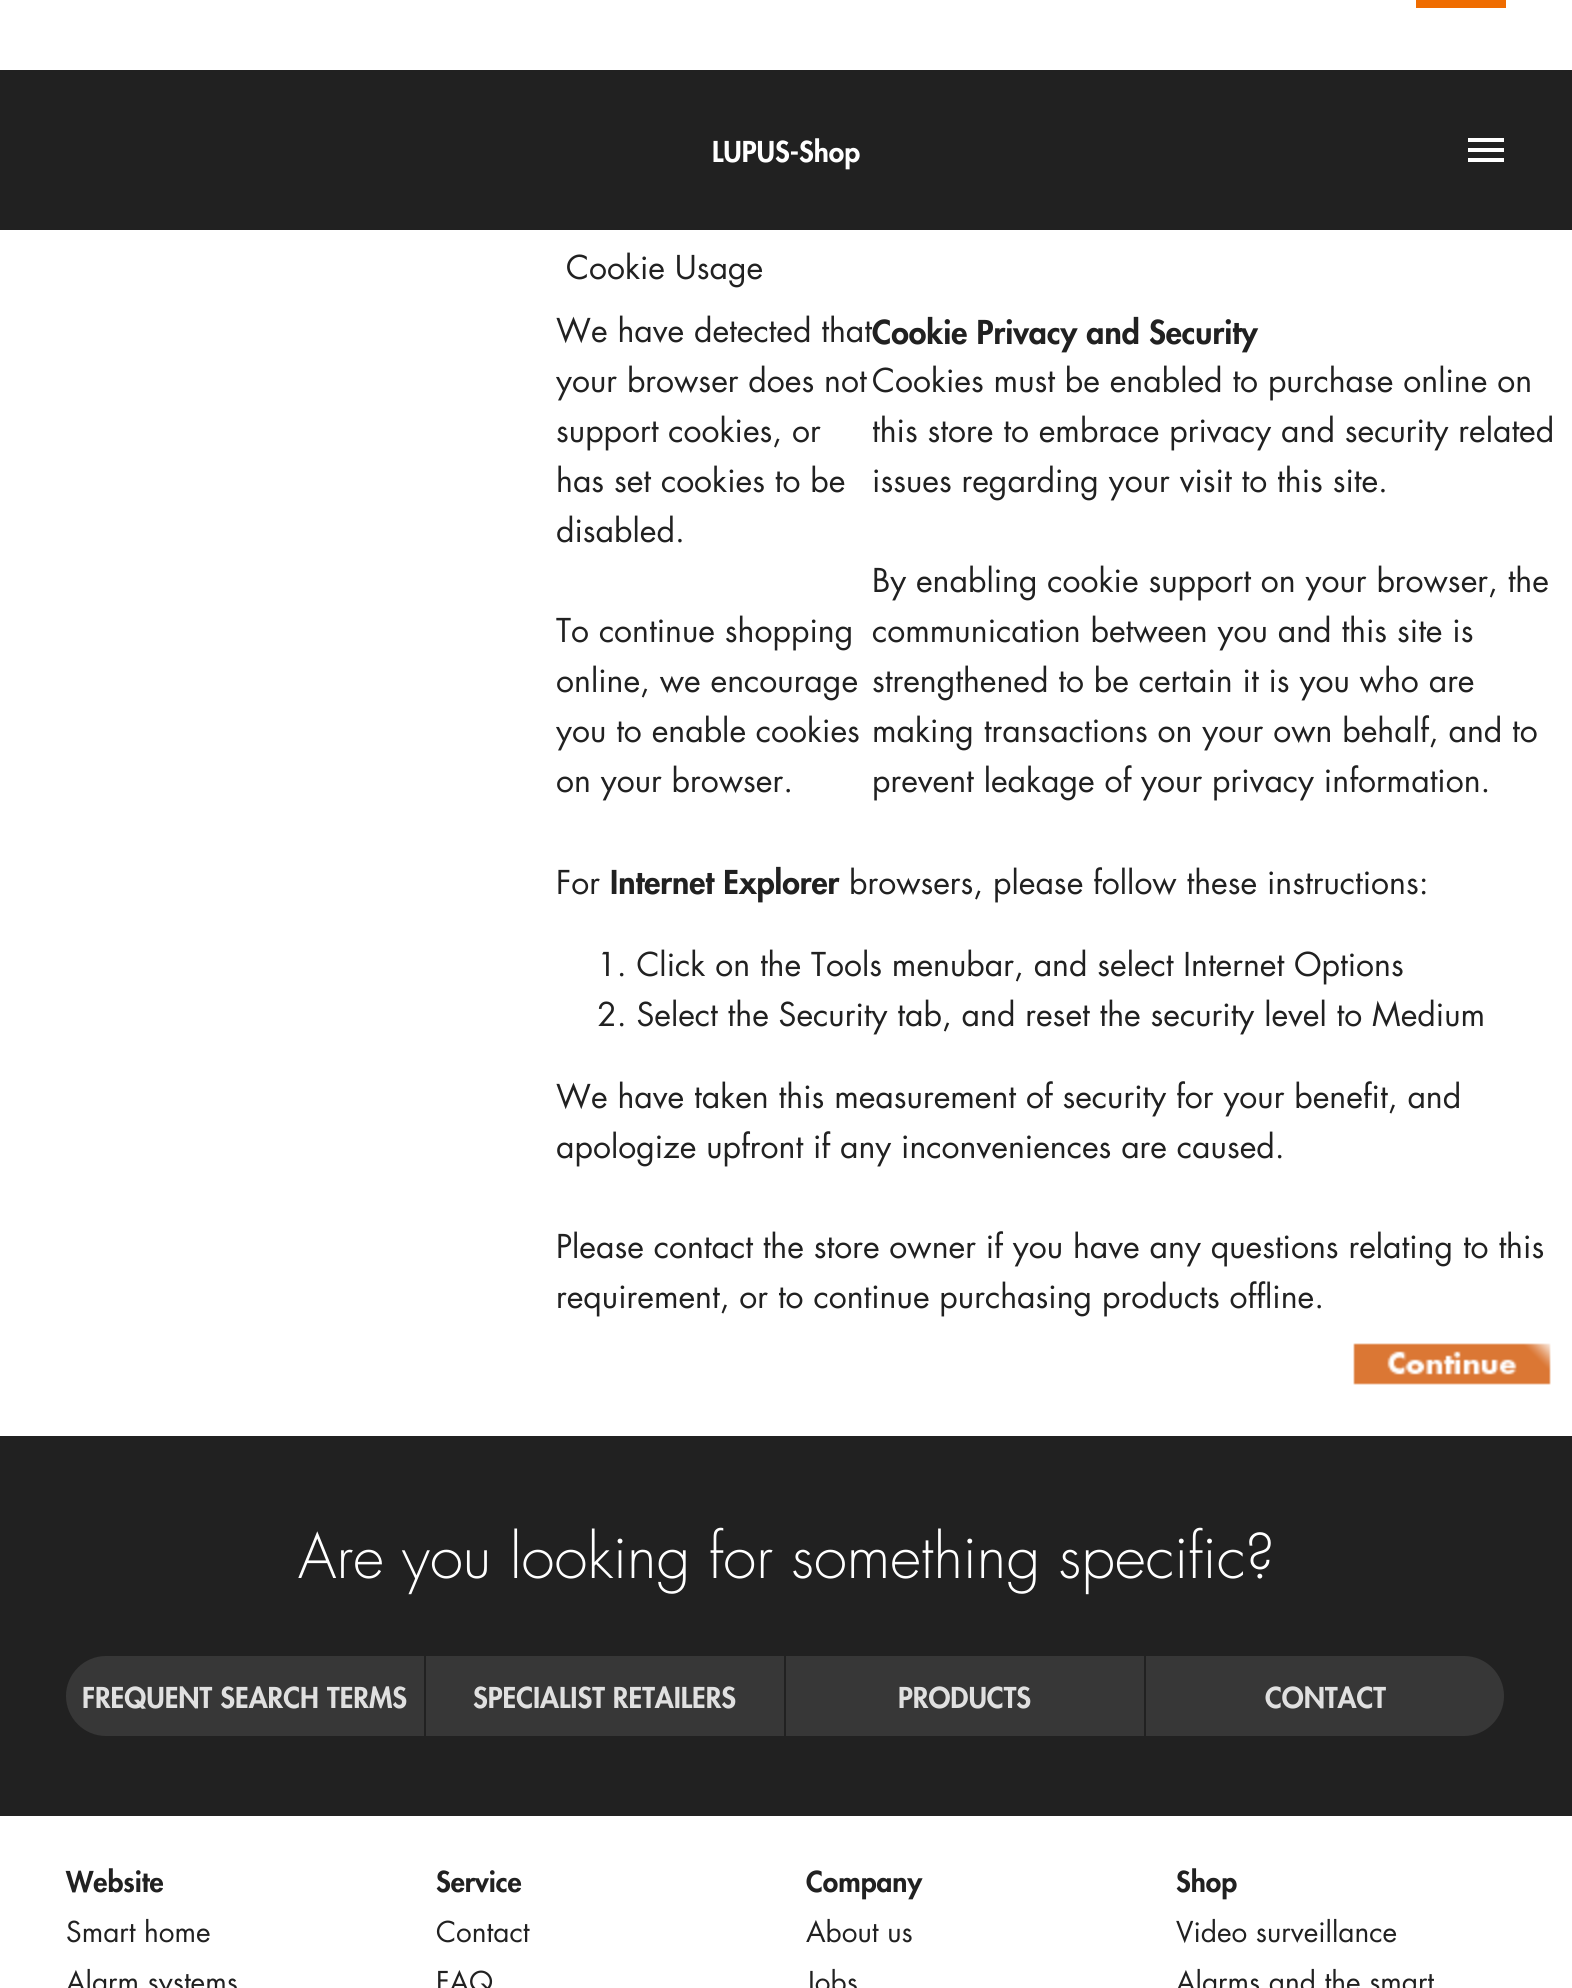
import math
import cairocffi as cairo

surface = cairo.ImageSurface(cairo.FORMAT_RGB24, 1572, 1988)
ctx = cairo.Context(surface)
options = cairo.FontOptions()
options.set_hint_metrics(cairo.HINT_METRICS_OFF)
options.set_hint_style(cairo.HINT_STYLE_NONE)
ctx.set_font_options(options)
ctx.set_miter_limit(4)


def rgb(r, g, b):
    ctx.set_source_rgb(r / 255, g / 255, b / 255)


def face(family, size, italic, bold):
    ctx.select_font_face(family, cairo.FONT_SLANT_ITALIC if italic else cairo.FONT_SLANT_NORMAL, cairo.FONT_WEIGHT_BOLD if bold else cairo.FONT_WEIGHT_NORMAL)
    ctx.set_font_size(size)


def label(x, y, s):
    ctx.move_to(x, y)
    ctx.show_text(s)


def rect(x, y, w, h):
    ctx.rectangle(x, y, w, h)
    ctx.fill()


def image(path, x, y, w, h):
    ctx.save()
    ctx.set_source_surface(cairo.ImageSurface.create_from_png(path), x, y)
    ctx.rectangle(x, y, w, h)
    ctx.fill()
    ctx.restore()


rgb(255, 255, 255)
ctx.paint()
rgb(33, 33, 33)
rect(0, 70, 1572, 160)
rgb(239, 108, 0)
rect(1416, 0, 90, 8)
face('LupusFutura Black', 28, 0, 0)
rgb(255, 255, 255)
label(712, 162, 'LUPUS-Shop')
ctx.new_path()
ctx.move_to(1468, 162)
ctx.line_to(1504, 162)
ctx.line_to(1504, 158)
ctx.line_to(1468, 158)
ctx.close_path()
ctx.move_to(1468, 152)
ctx.line_to(1504, 152)
ctx.line_to(1504, 148)
ctx.line_to(1468, 148)
ctx.close_path()
ctx.move_to(1468, 138)
ctx.line_to(1468, 142)
ctx.line_to(1504, 142)
ctx.line_to(1504, 138)
ctx.close_path()
ctx.fill()
face('LupusFutura', 32, 0, 0)
rgb(33, 33, 33)
label(566, 279, 'Cookie Usage')
face('LupusFutura Black', 32, 0, 0)
label(872, 344, 'Cookie Privacy and Security')
face('LupusFutura', 32, 0, 0)
label(556, 342, 'We have detected that')
label(872, 392, 'Cookies must be enabled to purchase online on')
label(872, 442, 'this store to embrace privacy and security related')
label(872, 492, 'issues regarding your visit to this site.')
label(872, 592, 'By enabling cookie support on your browser, the')
label(872, 642, 'communication between you and this site is')
label(872, 692, 'strengthened to be certain it is you who are')
label(872, 742, 'making transactions on your own behalf, and to')
label(872, 792, 'prevent leakage of your privacy information.')
label(556, 392, 'your browser does not')
label(556, 442, 'support cookies, or')
label(556, 492, 'has set cookies to be')
label(556, 542, 'disabled.')
label(556, 642, 'To continue shopping')
label(556, 692, 'online, we encourage')
label(556, 742, 'you to enable cookies')
label(556, 792, 'on your browser.')
label(556, 894, 'For')
face('LupusFutura Black', 32, 0, 0)
label(610, 894, 'Internet Explorer')
face('LupusFutura', 32, 0, 0)
label(849, 894, 'browsers, please follow these instructions:')
label(597, 976, '1. Click on the Tools menubar, and select Internet Options')
label(597, 1026, '2. Select the Security tab, and reset the security level to Medium')
label(556, 1108, 'We have taken this measurement of security for your benefit, and')
label(556, 1158, 'apologize upfront if any inconveniences are caused.')
label(556, 1258, 'Please contact the store owner if you have any questions relating to this')
label(556, 1308, 'requirement, or to continue purchasing products offline.')
image('image0.png', 1353, 1343, 198, 42)
rect(0, 1436, 1572, 380)
face('LupusFutura Light', 60, 0, 0)
rgb(255, 255, 255)
label(298, 1578, 'Are you looking for something specific?')
rgb(55, 55, 55)
ctx.new_path()
ctx.move_to(106, 1656)
ctx.line_to(424, 1656)
ctx.line_to(424, 1736)
ctx.line_to(106, 1736)
ctx.curve_to(84, 1736, 66, 1718, 66, 1696)
ctx.curve_to(66, 1674, 84, 1656, 106, 1656)
ctx.close_path()
ctx.fill()
face('LupusFutura Black', 28, 0, 0)
rgb(224, 224, 224)
label(82, 1708, 'FREQUENT SEARCH TERMS')
rgb(55, 55, 55)
rect(426, 1656, 358, 80)
rgb(224, 224, 224)
label(473, 1708, 'SPECIALIST RETAILERS')
rgb(55, 55, 55)
rect(786, 1656, 358, 80)
rgb(224, 224, 224)
label(898, 1708, 'PRODUCTS')
rgb(55, 55, 55)
ctx.new_path()
ctx.move_to(1146, 1656)
ctx.line_to(1464, 1656)
ctx.curve_to(1486, 1656, 1504, 1674, 1504, 1696)
ctx.curve_to(1504, 1718, 1486, 1736, 1464, 1736)
ctx.line_to(1146, 1736)
ctx.close_path()
ctx.fill()
rgb(224, 224, 224)
label(1265, 1708, 'CONTACT')
rgb(33, 33, 33)
label(66, 1892, 'Website')
face('LupusFutura', 28, 0, 0)
label(66, 1942, 'Smart home')
label(66, 1992, 'Alarm systems')
face('LupusFutura Black', 28, 0, 0)
label(436, 1892, 'Service')
face('LupusFutura', 28, 0, 0)
label(436, 1942, 'Contact')
label(436, 1992, 'FAQ')
face('LupusFutura Black', 28, 0, 0)
label(806, 1892, 'Company')
face('LupusFutura', 28, 0, 0)
label(806, 1942, 'About us')
label(806, 1992, 'Jobs')
face('LupusFutura Black', 28, 0, 0)
label(1176, 1892, 'Shop')
face('LupusFutura', 28, 0, 0)
label(1176, 1942, 'Video surveillance')
label(1176, 1992, 'Alarms and the smart')
surface.write_to_png('render.png')
